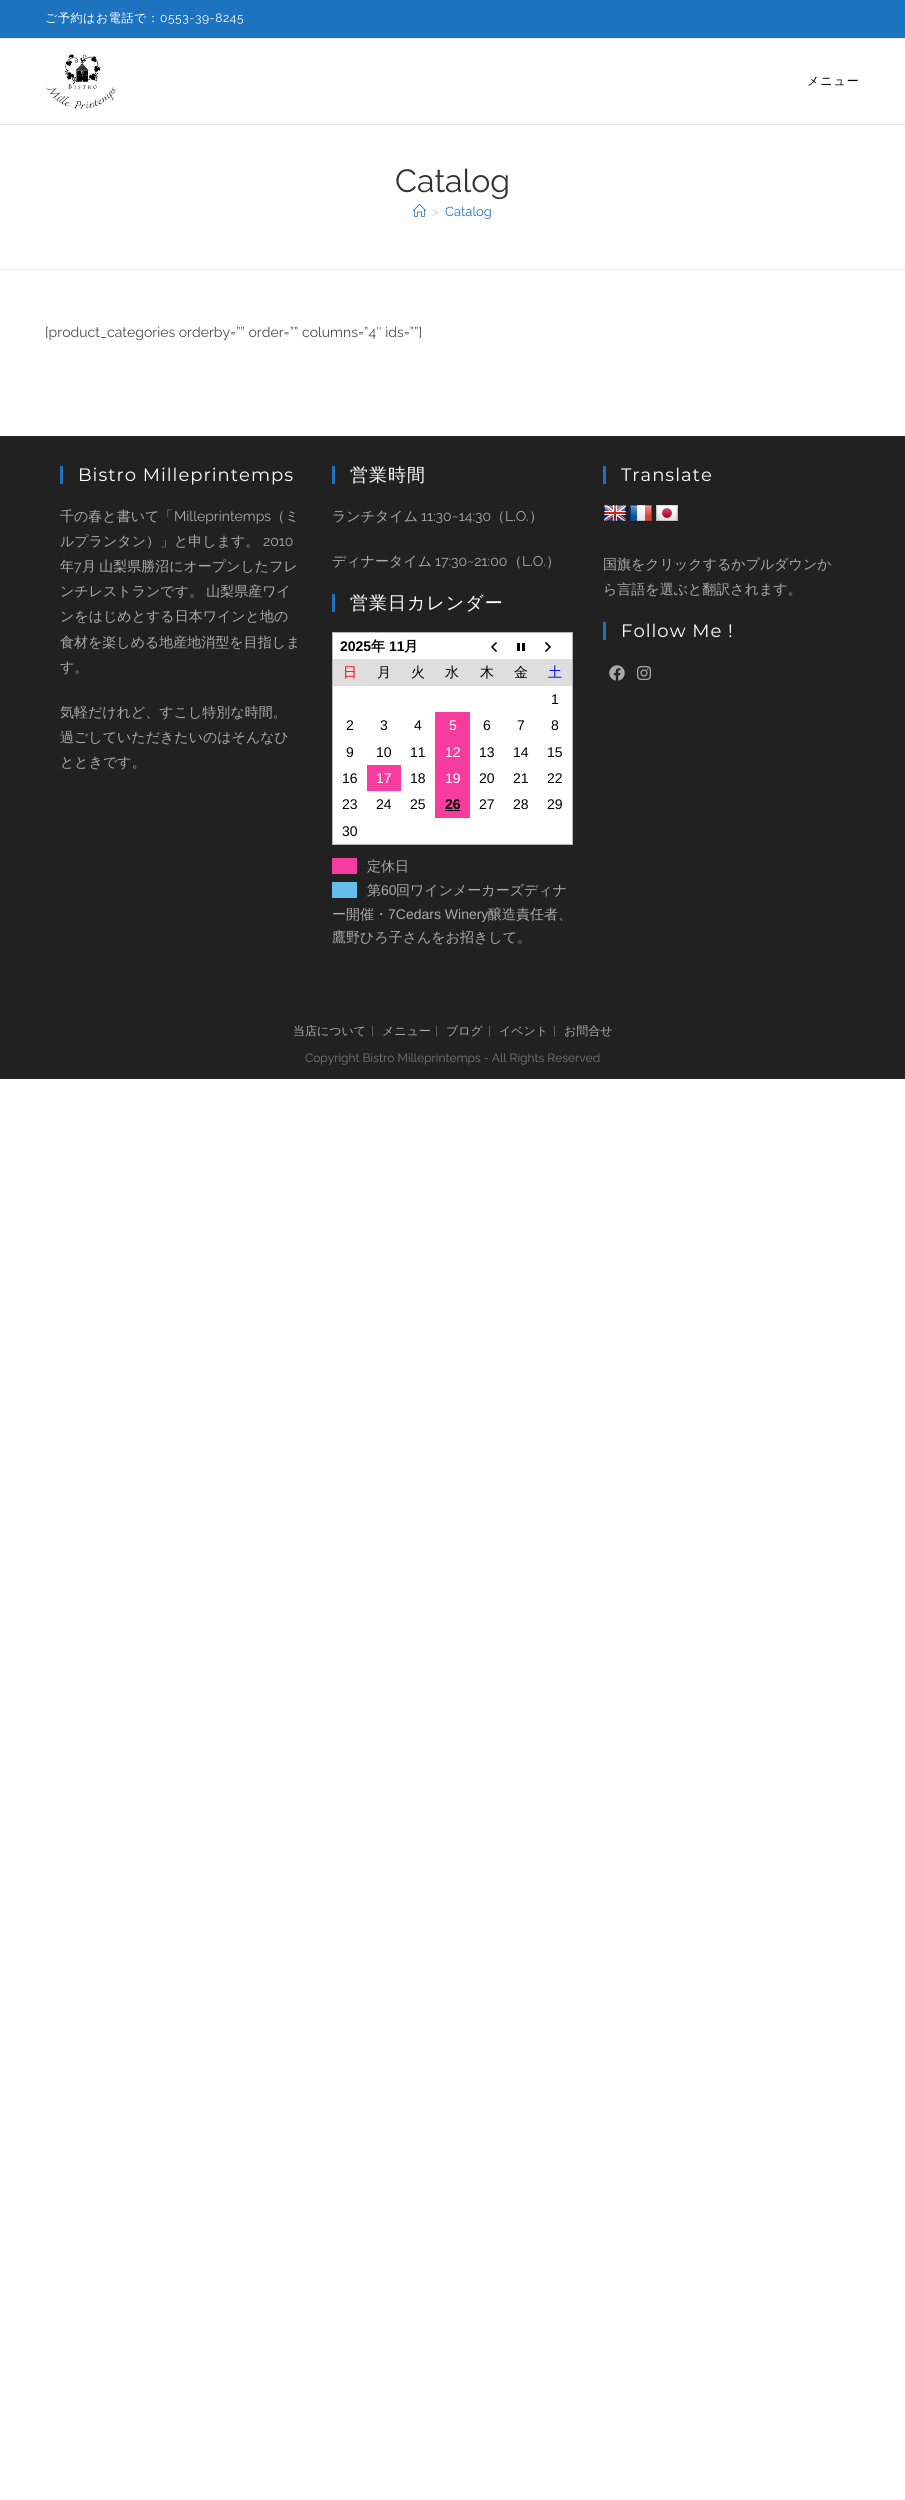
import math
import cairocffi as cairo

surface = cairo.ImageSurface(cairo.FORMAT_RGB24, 905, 2500)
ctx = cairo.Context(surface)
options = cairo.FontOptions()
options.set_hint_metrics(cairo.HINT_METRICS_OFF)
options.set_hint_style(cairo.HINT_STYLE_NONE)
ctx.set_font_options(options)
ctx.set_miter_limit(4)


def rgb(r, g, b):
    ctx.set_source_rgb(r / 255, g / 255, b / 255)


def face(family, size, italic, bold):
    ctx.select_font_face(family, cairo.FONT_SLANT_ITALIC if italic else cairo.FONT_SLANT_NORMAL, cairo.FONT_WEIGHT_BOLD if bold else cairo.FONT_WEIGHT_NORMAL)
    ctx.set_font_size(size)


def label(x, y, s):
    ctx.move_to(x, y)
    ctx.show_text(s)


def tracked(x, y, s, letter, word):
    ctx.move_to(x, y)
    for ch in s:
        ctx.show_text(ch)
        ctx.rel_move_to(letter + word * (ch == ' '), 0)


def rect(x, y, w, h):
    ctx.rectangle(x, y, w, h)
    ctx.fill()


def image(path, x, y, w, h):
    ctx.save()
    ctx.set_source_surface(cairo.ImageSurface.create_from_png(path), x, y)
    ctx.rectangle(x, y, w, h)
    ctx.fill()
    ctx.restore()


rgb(255, 255, 255)
ctx.paint()
rgb(30, 115, 190)
rect(0, 0, 905, 38)
rgb(234, 234, 234)
rect(0, 38, 905, 1)
face('WenQuanYi Zen Hei Medium', 12, 0, 0)
rgb(255, 255, 255)
tracked(45, 22, 'ご予約はお電話で：', 0.6, 0)
face('Raleway', 12, 0, 0)
tracked(160, 22, '0553-39-8245', 0.6, 0)
rgb(232, 232, 232)
rect(0, 124, 905, 1)
image('image0.png', 46, 54, 70, 55)
face('WenQuanYi Zen Hei Medium', 12, 0, 0)
rgb(0, 0, 0)
tracked(807, 85, 'メニュー', 1, 0)
rgb(241, 241, 241)
rect(0, 269, 905, 1)
face('Raleway', 32, 0, 0)
rgb(51, 51, 51)
label(395, 192, 'Catalog')
image('image1.png', 413, 203, 13, 14)
face('Raleway', 13, 0, 0)
rgb(198, 198, 198)
label(432, 216, '>')
rgb(30, 115, 190)
label(445, 216, 'Catalog')
face('Raleway', 14, 0, 0)
rgb(74, 74, 74)
label(45, 337, '[product_categories orderby=”” order=”” columns=”4″ ids=””]')
rgb(33, 33, 33)
rect(0, 436, 905, 643)
rgb(30, 115, 190)
rect(60, 466, 3, 18)
face('Montserrat', 18, 0, 0)
rgb(255, 255, 255)
tracked(78, 481, 'Bistro Milleprintemps', 1, 0)
face('WenQuanYi Zen Hei Medium', 14, 0, 0)
rgb(170, 170, 170)
label(60, 521, '千の春と書いて「')
face('Raleway', 14, 0, 0)
label(174, 521, 'Milleprintemps')
face('WenQuanYi Zen Hei Medium', 14, 0, 0)
label(271, 521, '（ミ')
label(60, 546, 'ルプランタン）」と申します。')
face('Raleway', 14, 0, 0)
label(263, 546, '2010')
face('WenQuanYi Zen Hei Medium', 14, 0, 0)
label(60, 571, '年')
face('Raleway', 14, 0, 0)
label(74, 571, '7')
face('WenQuanYi Zen Hei Medium', 14, 0, 0)
tracked(82, 571, '月 山梨県勝沼にオープンしたフレ', 0, -1)
tracked(60, 596, 'ンチレストランです。 山梨県産ワイ', 0, -1)
label(60, 621, 'ンをはじめとする日本ワインと地の')
label(60, 647, '食材を楽しめる地産地消型を目指しま')
label(60, 672, 'す。')
label(60, 717, '気軽だけれど、すこし特別な時間。')
label(60, 742, '過ごしていただきたいのはそんなひ')
label(60, 767, 'とときです。')
rgb(30, 115, 190)
rect(332, 466, 3, 18)
face('WenQuanYi Zen Hei Medium', 18, 0, 0)
rgb(255, 255, 255)
tracked(350, 481, '営業時間', 1, 0)
face('WenQuanYi Zen Hei Medium', 14, 0, 0)
rgb(170, 170, 170)
label(332, 521, 'ランチタイム')
face('Raleway', 14, 0, 0)
label(421, 521, '11:30~14:30')
face('WenQuanYi Zen Hei Medium', 14, 0, 0)
label(491, 521, '（')
face('Raleway', 14, 0, 0)
label(505, 521, 'L.O.')
face('WenQuanYi Zen Hei Medium', 14, 0, 0)
label(529, 521, '）')
label(332, 566, 'ディナータイム')
face('Raleway', 14, 0, 0)
label(435, 566, '17:30~21:00')
face('WenQuanYi Zen Hei Medium', 14, 0, 0)
label(508, 566, '（')
face('Raleway', 14, 0, 0)
label(522, 566, 'L.O.')
face('WenQuanYi Zen Hei Medium', 14, 0, 0)
label(546, 566, '）')
rgb(30, 115, 190)
rect(332, 594, 3, 18)
face('WenQuanYi Zen Hei Medium', 18, 0, 0)
rgb(255, 255, 255)
tracked(350, 609, '営業日カレンダー', 1, 0)
rect(333, 633, 239, 211)
rgb(181, 181, 182)
rect(332, 632, 241, 1)
rect(572, 632, 1, 213)
rect(332, 844, 241, 1)
rect(332, 632, 1, 213)
face('Liberation Sans', 14, 0, 1)
rgb(0, 0, 0)
label(340, 651, '2025')
face('WenQuanYi Zen Hei', 14, 0, 1)
label(371, 651, '年')
face('Liberation Sans', 14, 0, 1)
label(389, 651, '11')
face('WenQuanYi Zen Hei', 14, 0, 1)
label(404, 651, '月')
image('image2.png', 491, 642, 6, 10)
image('image3.png', 517, 643, 8, 8)
image('image4.png', 545, 642, 6, 10)
rgb(222, 222, 222)
rect(333, 659, 239, 27)
face('WenQuanYi Zen Hei Medium', 14, 0, 0)
rgb(255, 0, 0)
label(343, 677, '日')
rgb(0, 0, 0)
label(377, 677, '月')
label(411, 677, '火')
label(445, 677, '水')
label(480, 677, '木')
label(514, 677, '金')
rgb(0, 0, 255)
label(548, 677, '土')
face('Liberation Sans', 14, 0, 0)
rgb(0, 0, 0)
label(551, 704, '1')
label(346, 730, '2')
label(380, 730, '3')
label(414, 730, '4')
rgb(246, 60, 159)
rect(435, 712, 35, 106)
rgb(255, 255, 255)
label(449, 730, '5')
rgb(0, 0, 0)
label(483, 730, '6')
label(517, 730, '7')
label(551, 730, '8')
label(346, 757, '9')
label(376, 757, '10')
label(410, 757, '11')
rgb(255, 255, 255)
label(445, 757, '12')
rgb(0, 0, 0)
label(479, 757, '13')
label(513, 757, '14')
label(547, 757, '15')
label(342, 783, '16')
rgb(246, 60, 159)
rect(367, 765, 34, 26)
rgb(255, 255, 255)
label(376, 783, '17')
rgb(0, 0, 0)
label(410, 783, '18')
rgb(255, 255, 255)
label(445, 783, '19')
rgb(0, 0, 0)
label(479, 783, '20')
label(513, 783, '21')
label(547, 783, '22')
label(342, 809, '23')
label(376, 809, '24')
label(410, 809, '25')
face('Liberation Sans', 14, 0, 1)
label(445, 809, '26')
rect(445, 810, 15, 1)
face('Liberation Sans', 14, 0, 0)
label(479, 809, '27')
label(513, 809, '28')
label(547, 809, '29')
label(342, 836, '30')
rgb(246, 60, 159)
rect(332, 858, 25, 16)
face('WenQuanYi Zen Hei Medium', 14, 0, 0)
rgb(170, 170, 170)
label(367, 871, '定休日')
rgb(100, 189, 235)
rect(332, 882, 25, 16)
rgb(170, 170, 170)
label(367, 895, '第')
face('Liberation Sans', 14, 0, 0)
label(381, 895, '60')
face('WenQuanYi Zen Hei Medium', 14, 0, 0)
label(396, 895, '回ワインメーカーズディナ')
label(332, 919, 'ー開催・')
face('Liberation Sans', 14, 0, 0)
label(388, 919, '7Cedars Winery')
face('WenQuanYi Zen Hei Medium', 14, 0, 0)
label(488, 919, '醸造責任者、')
label(332, 942, '鷹野ひろ子さんをお招きして。')
rgb(30, 115, 190)
rect(603, 466, 3, 18)
face('Montserrat', 18, 0, 0)
rgb(255, 255, 255)
tracked(621, 481, 'Translate', 1, 0)
image('image5.png', 604, 505, 22, 17)
image('image6.png', 630, 505, 22, 17)
image('image7.png', 656, 505, 22, 17)
face('WenQuanYi Zen Hei Medium', 14, 0, 0)
rgb(170, 170, 170)
label(603, 569, '国旗をクリックするかプルダウンか')
label(603, 594, 'ら言語を選ぶと翻訳されます。')
rgb(30, 115, 190)
rect(603, 622, 3, 18)
face('Montserrat', 18, 0, 0)
rgb(255, 255, 255)
tracked(621, 637, 'Follow Me !', 1, 0)
image('image8.png', 609, 665, 16, 16)
image('image9.png', 637, 666, 14, 14)
face('WenQuanYi Zen Hei Medium', 12, 0, 0)
rgb(170, 170, 170)
label(293, 1035, '当店について')
face('Raleway', 12, 0, 0)
rgb(119, 119, 119)
label(371, 1035, '|')
face('WenQuanYi Zen Hei Medium', 12, 0, 0)
rgb(170, 170, 170)
label(382, 1035, 'メニュー')
face('Raleway', 12, 0, 0)
rgb(119, 119, 119)
label(435, 1035, '|')
face('WenQuanYi Zen Hei Medium', 12, 0, 0)
rgb(170, 170, 170)
label(446, 1035, 'ブログ')
face('Raleway', 12, 0, 0)
rgb(119, 119, 119)
label(488, 1035, '|')
face('WenQuanYi Zen Hei Medium', 12, 0, 0)
rgb(170, 170, 170)
label(499, 1035, 'イベント')
face('Raleway', 12, 0, 0)
rgb(119, 119, 119)
label(553, 1035, '|')
face('WenQuanYi Zen Hei Medium', 12, 0, 0)
rgb(170, 170, 170)
label(564, 1035, 'お問合せ')
face('Raleway', 12, 0, 0)
rgb(119, 119, 119)
label(305, 1062, 'Copyright Bistro Milleprintemps - All Rights Reserved')
surface.write_to_png('render.png')
